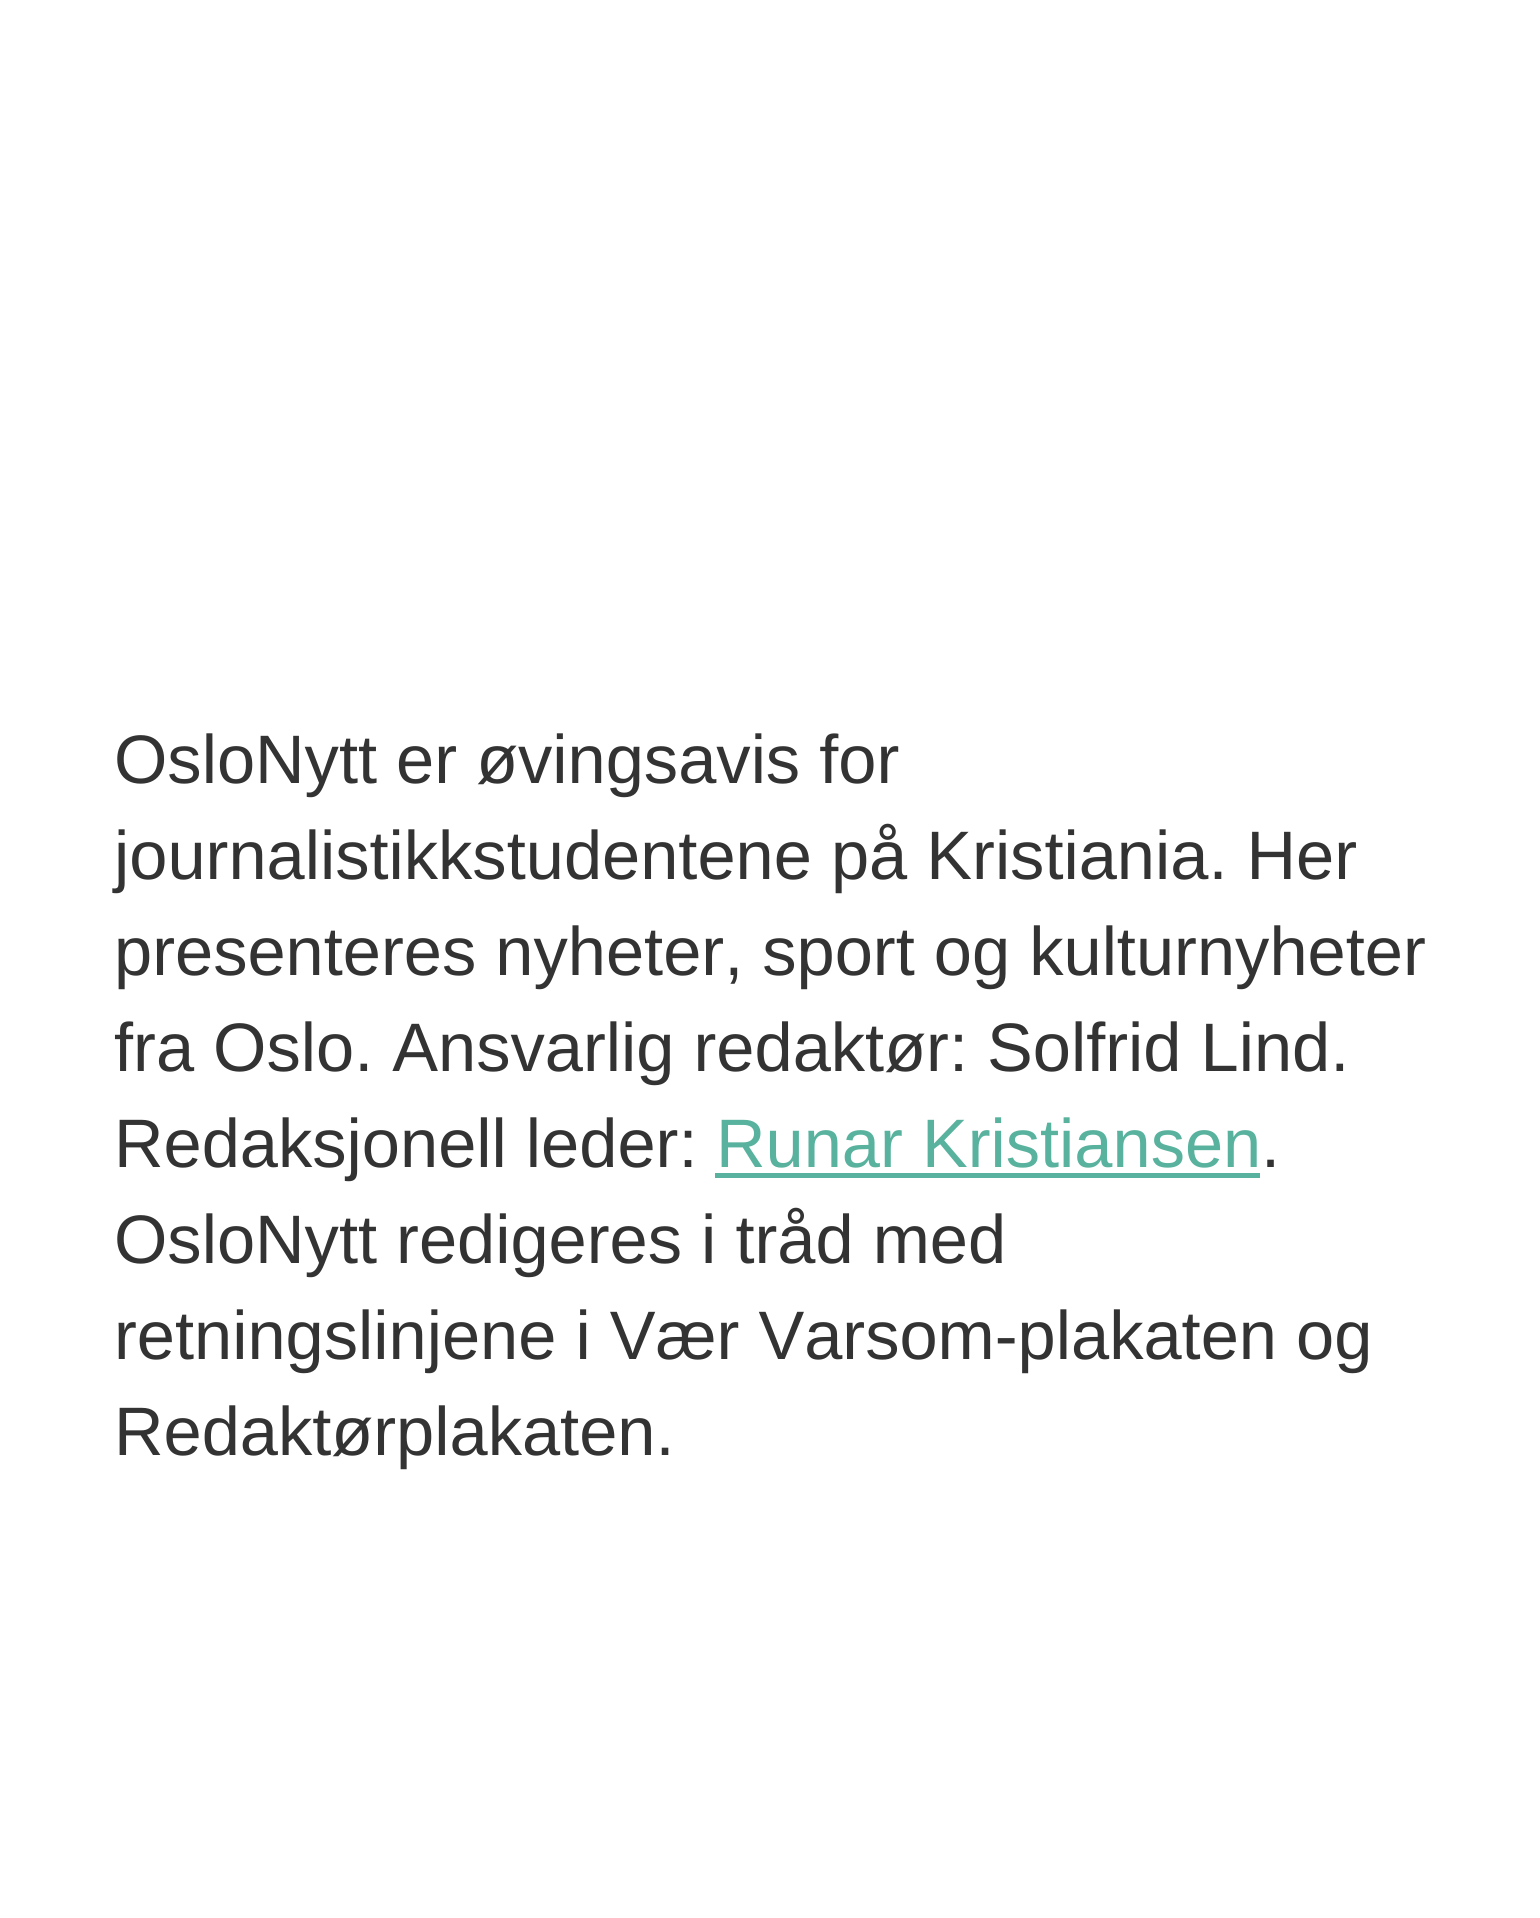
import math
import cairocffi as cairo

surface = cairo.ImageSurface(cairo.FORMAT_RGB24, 1540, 1918)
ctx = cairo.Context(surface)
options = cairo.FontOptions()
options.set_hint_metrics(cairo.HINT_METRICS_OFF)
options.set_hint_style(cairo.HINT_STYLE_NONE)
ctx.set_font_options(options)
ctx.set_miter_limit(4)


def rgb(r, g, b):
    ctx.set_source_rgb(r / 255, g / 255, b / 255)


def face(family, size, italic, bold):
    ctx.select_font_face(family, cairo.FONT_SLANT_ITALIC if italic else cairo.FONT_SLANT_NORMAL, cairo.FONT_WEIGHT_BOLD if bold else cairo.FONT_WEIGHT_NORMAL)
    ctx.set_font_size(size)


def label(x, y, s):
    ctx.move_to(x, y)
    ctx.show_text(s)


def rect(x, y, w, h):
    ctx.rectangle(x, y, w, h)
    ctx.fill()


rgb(255, 255, 255)
ctx.paint()
face('Liberation Sans', 68.6, 0, 0)
rgb(51, 51, 51)
label(114, 783, 'OsloNytt er øvingsavis for')
label(114, 879, 'journalistikkstudentene på Kristiania. Her')
label(114, 975, 'presenteres nyheter, sport og kulturnyheter')
label(114, 1071, 'fra Oslo. Ansvarlig redaktør: Solfrid Lind.')
label(114, 1167, 'Redaksjonell leder:')
rgb(88, 178, 158)
label(716, 1167, 'Runar Kristiansen')
rect(715, 1173, 545, 5)
rgb(51, 51, 51)
label(1261, 1167, '.')
label(114, 1263, 'OsloNytt redigeres i tråd med')
label(114, 1359, 'retningslinjene i Vær Varsom-plakaten og')
label(114, 1455, 'Redaktørplakaten.')
surface.write_to_png('render.png')
